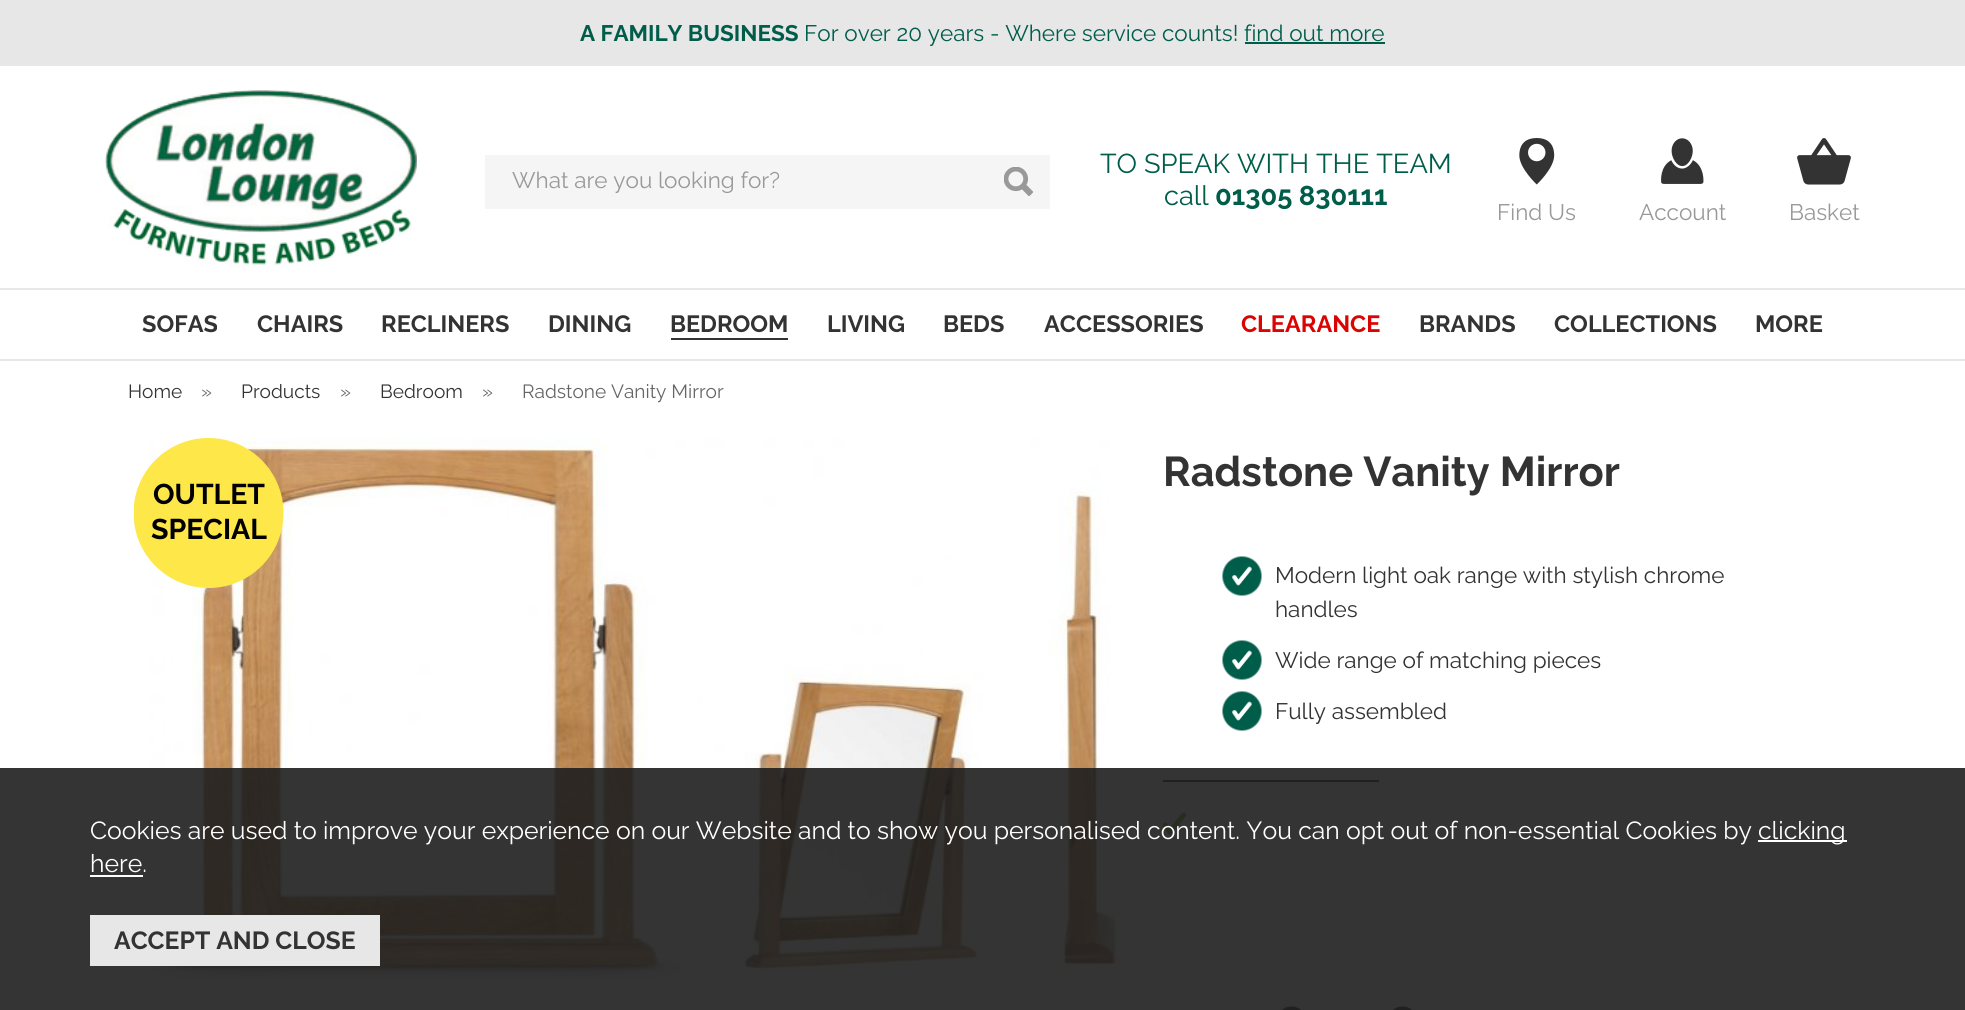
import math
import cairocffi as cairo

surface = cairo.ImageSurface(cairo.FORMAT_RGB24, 1965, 1010)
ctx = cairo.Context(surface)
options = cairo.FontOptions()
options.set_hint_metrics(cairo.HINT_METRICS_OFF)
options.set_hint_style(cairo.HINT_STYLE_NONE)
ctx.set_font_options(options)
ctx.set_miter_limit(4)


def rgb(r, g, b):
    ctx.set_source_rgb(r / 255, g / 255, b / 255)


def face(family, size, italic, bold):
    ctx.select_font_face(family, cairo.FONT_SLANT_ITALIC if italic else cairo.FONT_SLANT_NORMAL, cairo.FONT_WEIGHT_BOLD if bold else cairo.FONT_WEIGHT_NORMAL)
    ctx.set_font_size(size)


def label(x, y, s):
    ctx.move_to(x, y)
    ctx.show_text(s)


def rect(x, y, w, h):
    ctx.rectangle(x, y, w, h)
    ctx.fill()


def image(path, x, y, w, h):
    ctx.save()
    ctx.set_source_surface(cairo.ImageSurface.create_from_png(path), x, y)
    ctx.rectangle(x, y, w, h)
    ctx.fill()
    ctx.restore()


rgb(255, 255, 255)
ctx.paint()
rgb(231, 231, 231)
rect(0, 0, 1965, 66)
face('Raleway', 22.5, 0, 1)
rgb(0, 93, 74)
label(580, 41, 'A FAMILY BUSINESS')
face('Raleway', 22.5, 0, 0)
label(804, 41, 'For over 20 years - Where service counts! find out more')
rect(1245, 42, 140, 2)
image('image0.png', 105, 90, 312, 178)
rgb(245, 245, 245)
rect(485, 155, 565, 54)
rgb(153, 153, 153)
label(512, 188, 'What are you looking for?')
image('image1.png', 1004, 167, 30, 30)
face('Raleway', 27.25, 0, 0)
rgb(0, 93, 74)
label(1100, 173, 'TO SPEAK WITH THE TEAM')
label(1164, 205, 'call')
face('Raleway', 27.25, 0, 1)
label(1215, 205, '01305 830111')
image('image2.png', 1519, 138, 36, 47)
face('Raleway', 22.5, 0, 0)
rgb(153, 153, 153)
label(1497, 220, 'Find Us')
image('image3.png', 1661, 138, 43, 46)
label(1639, 220, 'Account')
image('image4.png', 1797, 138, 54, 47)
label(1789, 220, 'Basket')
rgb(231, 231, 231)
rect(0, 288, 1965, 2)
rect(0, 359, 1965, 2)
face('Raleway', 23.5, 0, 1)
rgb(51, 51, 51)
label(142, 332, 'SOFAS')
label(257, 332, 'CHAIRS')
label(381, 332, 'RECLINERS')
label(548, 332, 'DINING')
label(670, 332, 'BEDROOM')
rect(671, 338, 117, 2)
label(827, 332, 'LIVING')
label(943, 332, 'BEDS')
label(1044, 332, 'ACCESSORIES')
rgb(218, 4, 3)
label(1241, 332, 'CLEARANCE')
rgb(51, 51, 51)
label(1419, 332, 'BRANDS')
label(1554, 332, 'COLLECTIONS')
label(1755, 332, 'MORE')
face('Raleway', 19.1, 0, 0)
label(128, 398, 'Home')
rgb(102, 102, 102)
label(201, 398, '»')
rgb(51, 51, 51)
label(241, 398, 'Products')
rgb(102, 102, 102)
label(340, 398, '»')
rgb(51, 51, 51)
label(380, 398, 'Bedroom')
rgb(102, 102, 102)
label(482, 398, '»')
label(522, 398, 'Radstone Vanity Mirror')
image('image5.png', 149, 438, 970, 542)
ctx.save()
ctx.rectangle(134, 438, 150, 150)
ctx.clip()
rgb(254, 231, 73)
ctx.arc(208.5, 513, 75, 0, 2 * math.pi)
ctx.fill()
ctx.restore()
face('Raleway', 28.5, 0, 1)
rgb(0, 0, 0)
label(153, 504, 'OUTLET')
label(151, 539, 'SPECIAL')
face('Raleway', 41.6, 0, 1)
rgb(51, 51, 51)
label(1163, 486, 'Radstone Vanity Mirror')
image('image6.png', 1222, 556, 40, 40)
face('Raleway', 22.5, 0, 0)
label(1275, 583, 'Modern light oak range with stylish chrome')
label(1275, 617, 'handles')
image('image6.png', 1222, 640, 40, 40)
label(1275, 668, 'Wide range of matching pieces')
image('image6.png', 1222, 691, 40, 40)
label(1275, 719, 'Fully assembled')
rect(1163, 780, 216, 2)
image('image7.png', 1162, 811, 25, 25)
image('image8.png', 1282, 1006, 19, 4)
image('image9.png', 1393, 1006, 19, 4)
ctx.set_source_rgba(0.118, 0.118, 0.118, 0.9)
rect(0, 768, 1965, 242)
face('Raleway', 24.75, 0, 0)
rgb(255, 255, 255)
label(90, 839, 'Cookies are used to improve your experience on our Website and to show you personalised content. You can opt out of non-essential Cookies by')
rect(1758, 840, 89, 2)
label(1758, 839, 'clicking')
label(90, 872, 'here.')
rect(90, 875, 53, 2)
rgb(231, 231, 231)
rect(90, 915, 290, 51)
face('Raleway', 24.75, 0, 1)
rgb(51, 51, 51)
label(114, 949, 'ACCEPT AND CLOSE')
surface.write_to_png('render.png')
